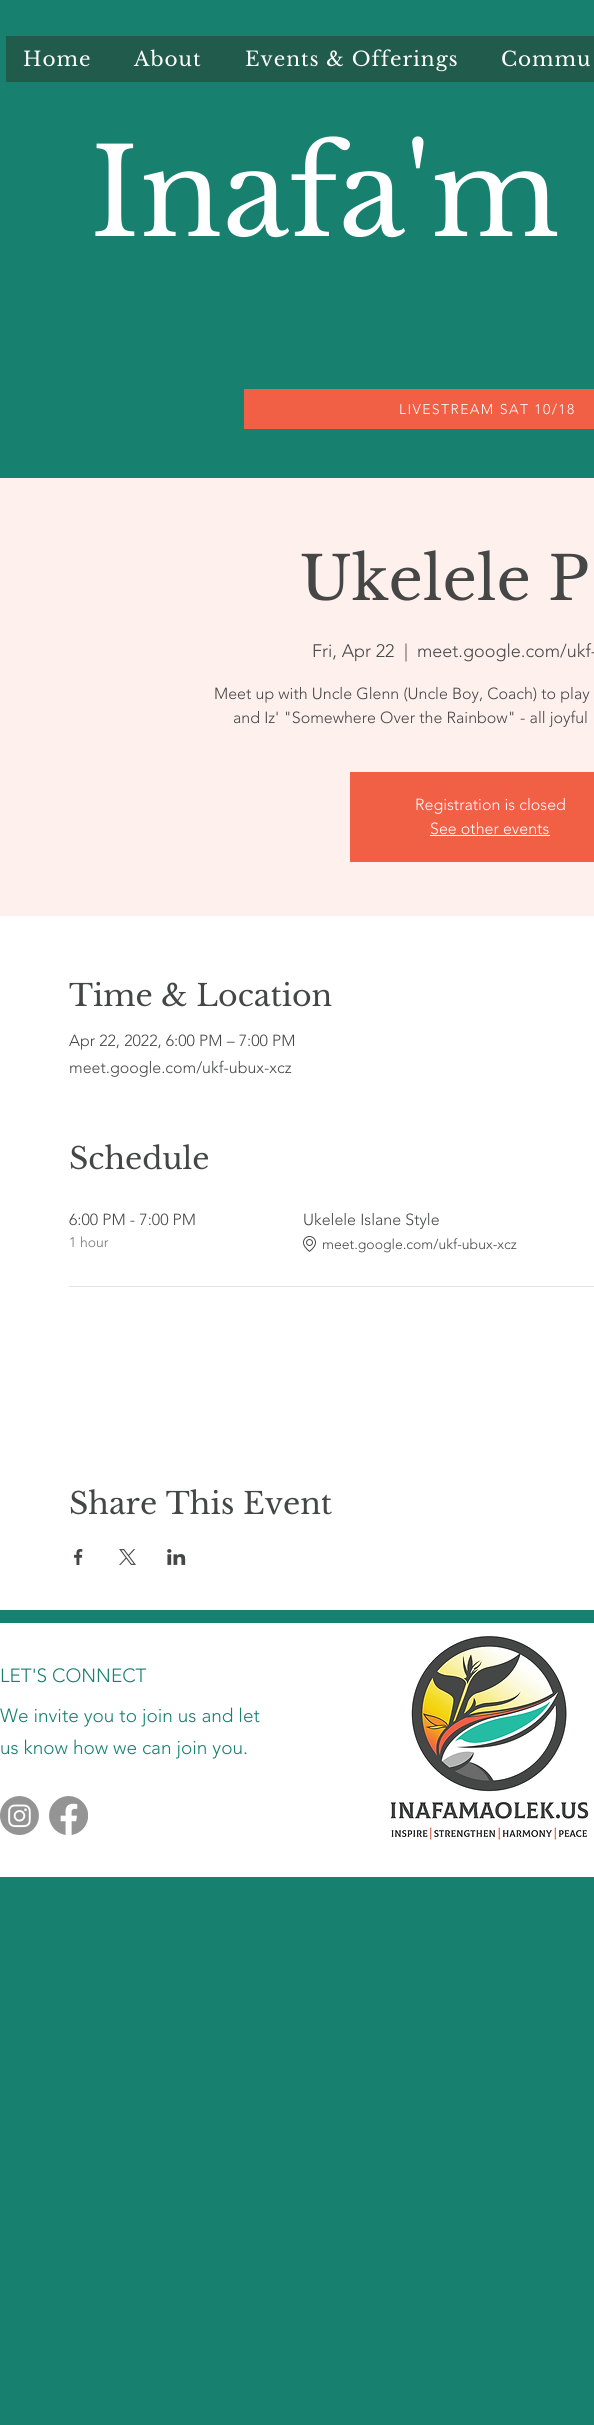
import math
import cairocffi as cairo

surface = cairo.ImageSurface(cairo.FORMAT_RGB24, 594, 2425)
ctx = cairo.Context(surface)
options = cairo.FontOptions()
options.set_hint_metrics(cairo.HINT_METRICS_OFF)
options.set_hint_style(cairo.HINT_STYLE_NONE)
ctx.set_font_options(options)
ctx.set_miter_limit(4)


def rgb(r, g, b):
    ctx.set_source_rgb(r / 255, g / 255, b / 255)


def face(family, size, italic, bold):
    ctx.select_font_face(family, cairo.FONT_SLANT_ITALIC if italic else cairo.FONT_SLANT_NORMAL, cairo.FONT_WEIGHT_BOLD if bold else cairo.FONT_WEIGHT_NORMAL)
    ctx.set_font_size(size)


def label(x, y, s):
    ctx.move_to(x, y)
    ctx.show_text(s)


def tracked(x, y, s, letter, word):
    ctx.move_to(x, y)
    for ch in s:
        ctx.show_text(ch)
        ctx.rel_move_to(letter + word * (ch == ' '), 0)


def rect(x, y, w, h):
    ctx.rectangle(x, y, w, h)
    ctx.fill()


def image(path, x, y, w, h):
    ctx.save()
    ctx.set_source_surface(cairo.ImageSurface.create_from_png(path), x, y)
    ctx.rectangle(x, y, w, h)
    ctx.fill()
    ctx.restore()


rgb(23, 128, 111)
ctx.paint()
rgb(33, 91, 76)
rect(6, 36, 588, 46)
face('Libre Baskerville', 20, 0, 0)
rgb(255, 255, 255)
tracked(23, 66, 'Home', 1, 0)
tracked(134, 66, 'About', 1, 0)
tracked(245, 66, 'Events & Offerings', 1, 0)
tracked(501, 66, 'Commu', 1, 0)
face('Libre Baskerville', 120, 0, 0)
label(90, 236, 'Inafa\'m')
rgb(241, 95, 68)
rect(244, 389, 350, 40)
face('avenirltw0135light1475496 Light', 14, 0, 0)
rgb(255, 255, 255)
tracked(399, 414, 'LIVESTREAM SAT 10/18', 1.4, 0)
rgb(254, 240, 237)
rect(0, 478, 594, 438)
face('Libre Baskerville', 60, 0, 0)
rgb(69, 70, 70)
label(300, 600, 'Ukelele P')
face('avenirltw0135light1475496 Light', 18, 0, 0)
label(312, 657, 'Fri, Apr 22')
label(404, 657, '|')
label(417, 657, 'meet.google.com/ukf-')
face('avenirltw0135light1475496 Light', 16, 0, 0)
label(214, 699, 'Meet up with Uncle Glenn (Uncle Boy, Coach) to play')
label(233, 723, 'and Iz\' "Somewhere Over the Rainbow" - all joyful')
rgb(241, 95, 68)
rect(350, 772, 244, 90)
rgb(255, 255, 255)
label(415, 810, 'Registration is closed')
label(430, 834, 'See other events')
rect(430, 835, 120, 1)
rect(0, 916, 594, 694)
face('Libre Baskerville', 30, 0, 0)
rgb(69, 70, 70)
label(69, 1006, 'Time & Location')
face('avenirltw0135light1475496 Light', 16, 0, 0)
label(69, 1046, 'Apr 22, 2022, 6:00 PM – 7:00 PM')
label(69, 1073, 'meet.google.com/ukf-ubux-xcz')
face('Libre Baskerville', 30, 0, 0)
label(69, 1169, 'Schedule')
face('avenirltw0135light1475496 Light', 16, 0, 0)
label(69, 1225, '6:00 PM - 7:00 PM')
face('avenirltw0135light1475496 Light', 14, 0, 0)
rgb(116, 116, 116)
label(69, 1247, '1 hour')
face('avenirltw0135light1475496 Light', 16, 0, 0)
rgb(69, 70, 70)
label(303, 1225, 'Ukelele Islane Style')
image('image0.png', 303, 1236, 13, 16)
face('avenirltw0135light1475496 Light', 14, 0, 0)
label(322, 1249, 'meet.google.com/ukf-ubux-xcz')
rgb(227, 227, 227)
rect(69, 1286, 525, 1)
face('Libre Baskerville', 30, 0, 0)
rgb(69, 70, 70)
label(69, 1514, 'Share This Event')
image('image1.png', 74, 1549, 9, 16)
image('image2.png', 119, 1549, 17, 16)
image('image3.png', 167, 1549, 19, 16)
rgb(255, 255, 255)
rect(0, 1623, 594, 254)
face('avenirltw0135light1475496 Light', 19, 0, 0)
rgb(23, 128, 111)
label(0, 1682, 'LET\'S CONNECT')
image('image4.png', 390, 1636, 199, 204)
label(0, 1722, 'We invite you to join us and let')
label(0, 1754, 'us know how we can join you.')
image('image5.png', 0, 1796, 39, 39)
image('image6.png', 49, 1796, 39, 39)
surface.write_to_png('render.png')
